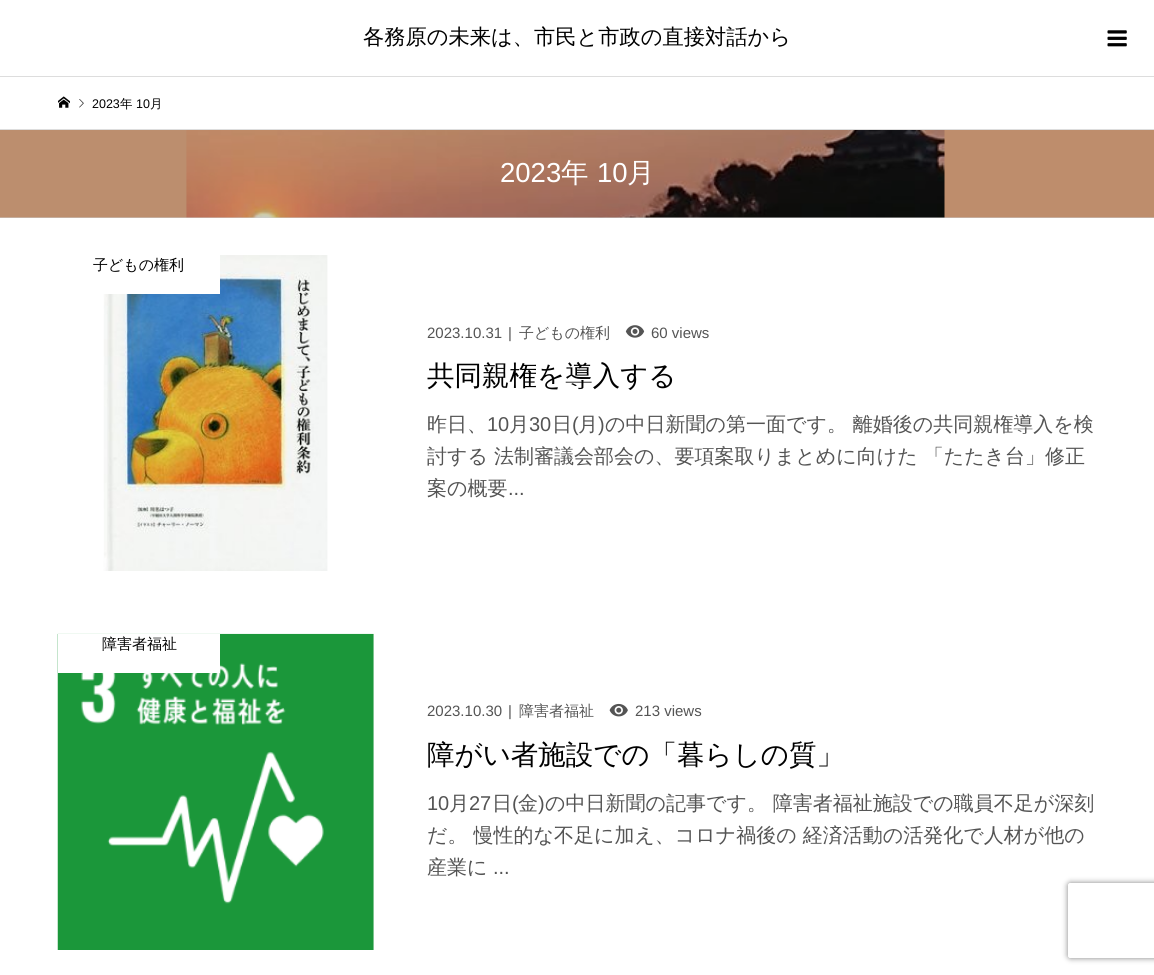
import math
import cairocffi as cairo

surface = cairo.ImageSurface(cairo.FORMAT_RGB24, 1154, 975)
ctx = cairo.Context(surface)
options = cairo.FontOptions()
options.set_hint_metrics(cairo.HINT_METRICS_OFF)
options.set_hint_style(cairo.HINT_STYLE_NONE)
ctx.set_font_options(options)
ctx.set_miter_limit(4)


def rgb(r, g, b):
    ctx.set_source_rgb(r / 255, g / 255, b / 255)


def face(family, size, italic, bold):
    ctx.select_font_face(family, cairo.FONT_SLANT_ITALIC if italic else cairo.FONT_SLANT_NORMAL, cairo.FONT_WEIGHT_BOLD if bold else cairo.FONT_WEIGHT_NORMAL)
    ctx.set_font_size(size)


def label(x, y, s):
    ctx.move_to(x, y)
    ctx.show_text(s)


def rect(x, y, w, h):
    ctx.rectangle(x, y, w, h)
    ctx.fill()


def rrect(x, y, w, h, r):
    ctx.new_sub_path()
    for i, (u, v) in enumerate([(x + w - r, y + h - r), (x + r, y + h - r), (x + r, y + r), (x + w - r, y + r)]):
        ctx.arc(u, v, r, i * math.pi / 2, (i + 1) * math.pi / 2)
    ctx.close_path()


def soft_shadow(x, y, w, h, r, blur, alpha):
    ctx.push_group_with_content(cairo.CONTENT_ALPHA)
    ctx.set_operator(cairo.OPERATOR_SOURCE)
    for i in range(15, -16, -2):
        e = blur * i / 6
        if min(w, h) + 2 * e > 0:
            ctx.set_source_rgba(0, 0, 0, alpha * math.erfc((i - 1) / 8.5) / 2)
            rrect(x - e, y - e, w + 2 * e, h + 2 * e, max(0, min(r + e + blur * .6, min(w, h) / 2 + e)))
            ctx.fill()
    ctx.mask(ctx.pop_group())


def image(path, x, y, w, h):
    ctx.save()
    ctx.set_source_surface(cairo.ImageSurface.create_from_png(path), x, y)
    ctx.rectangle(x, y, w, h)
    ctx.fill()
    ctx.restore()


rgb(255, 255, 255)
ctx.paint()
rgb(204, 204, 204)
rect(0, 217, 1154, 1)
face('WenQuanYi Zen Hei Medium', 21.25, 0, 0)
rgb(0, 0, 0)
label(363, 44, '各務原の未来は、市民と市政の直接対話から')
image('image0.png', 1107, 30, 20, 17)
rgb(221, 221, 221)
rect(0, 76, 1154, 1)
rect(0, 129, 1154, 1)
image('image1.png', 58, 96, 12, 12)
image('image2.png', 79, 99, 5, 9)
face('Liberation Sans', 12.5, 0, 0)
rgb(0, 0, 0)
label(92, 108, '2023')
face('WenQuanYi Zen Hei Medium', 12.5, 0, 0)
label(120, 108, '年')
face('Liberation Sans', 12.5, 0, 0)
label(136, 108, '10')
face('WenQuanYi Zen Hei Medium', 12.5, 0, 0)
label(150, 108, '月')
image('image3.png', 0, 130, 1154, 88)
face('Liberation Sans', 27.5, 0, 0)
rgb(255, 255, 255)
label(500, 182, '2023')
face('WenQuanYi Zen Hei Medium', 27.5, 0, 0)
label(561, 182, '年')
face('Liberation Sans', 27.5, 0, 0)
label(597, 182, '10')
face('WenQuanYi Zen Hei Medium', 27.5, 0, 0)
label(627, 182, '月')
image('image4.png', 103, 255, 225, 316)
rect(103, 255, 117, 39)
face('WenQuanYi Zen Hei Medium', 15, 0, 0)
rgb(0, 0, 0)
label(93, 270, '子どもの権利')
face('Liberation Sans', 15, 0, 0)
rgb(84, 84, 84)
label(427, 338, '2023.10.31')
label(508, 338, '|')
face('WenQuanYi Zen Hei Medium', 15, 0, 0)
label(519, 338, '子どもの権利')
image('image5.png', 625, 325, 20, 13)
face('Liberation Sans', 15, 0, 0)
label(651, 338, '60 views')
face('WenQuanYi Zen Hei Medium', 27.5, 0, 0)
rgb(0, 0, 0)
label(427, 385, '共同親権を導入する')
face('WenQuanYi Zen Hei Medium', 20, 0, 0)
rgb(84, 84, 84)
label(427, 431, '昨日、')
face('Liberation Sans', 20, 0, 0)
label(487, 431, '10')
face('WenQuanYi Zen Hei Medium', 20, 0, 0)
label(509, 431, '月')
face('Liberation Sans', 20, 0, 0)
label(529, 431, '30')
face('WenQuanYi Zen Hei Medium', 20, 0, 0)
label(552, 431, '日')
face('Liberation Sans', 20, 0, 0)
label(572, 431, '(')
face('WenQuanYi Zen Hei Medium', 20, 0, 0)
label(578, 431, '月')
face('Liberation Sans', 20, 0, 0)
label(598, 431, ')')
face('WenQuanYi Zen Hei Medium', 20, 0, 0)
label(605, 431, 'の中日新聞の第一面です。 離婚後の共同親権導入を検')
label(427, 463, '討する 法制審議会部会の、要項案取りまとめに向けた 「たたき台」修正')
label(427, 495, '案の概要')
face('Liberation Sans', 20, 0, 0)
label(508, 495, '...')
image('image6.png', 57, 633, 317, 317)
rgb(255, 255, 255)
rect(58, 634, 162, 39)
face('WenQuanYi Zen Hei Medium', 15, 0, 0)
rgb(0, 0, 0)
label(102, 649, '障害者福祉')
face('Liberation Sans', 15, 0, 0)
rgb(84, 84, 84)
label(427, 716, '2023.10.30')
label(508, 716, '|')
face('WenQuanYi Zen Hei Medium', 15, 0, 0)
label(519, 716, '障害者福祉')
image('image7.png', 609, 703, 19, 14)
face('Liberation Sans', 15, 0, 0)
label(635, 716, '213 views')
face('WenQuanYi Zen Hei Medium', 27.5, 0, 0)
rgb(0, 0, 0)
label(427, 764, '障がい者施設での「暮らしの質」')
face('Liberation Sans', 20, 0, 0)
rgb(84, 84, 84)
label(427, 810, '10')
face('WenQuanYi Zen Hei Medium', 20, 0, 0)
label(449, 810, '月')
face('Liberation Sans', 20, 0, 0)
label(469, 810, '27')
face('WenQuanYi Zen Hei Medium', 20, 0, 0)
label(492, 810, '日')
face('Liberation Sans', 20, 0, 0)
label(512, 810, '(')
face('WenQuanYi Zen Hei Medium', 20, 0, 0)
label(518, 810, '金')
face('Liberation Sans', 20, 0, 0)
label(538, 810, ')')
face('WenQuanYi Zen Hei Medium', 20, 0, 0)
label(545, 810, 'の中日新聞の記事です。 障害者福祉施設での職員不足が深刻')
label(427, 842, 'だ。 慢性的な不足に加え、コロナ禍後の 経済活動の活発化で人材が他の')
label(427, 874, '産業に')
face('Liberation Sans', 20, 0, 0)
label(493, 874, '...')
ctx.save()
ctx.set_fill_rule(cairo.FILL_RULE_EVEN_ODD)
ctx.new_path()
ctx.move_to(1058, 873)
ctx.line_to(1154, 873)
ctx.line_to(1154, 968)
ctx.line_to(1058, 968)
ctx.close_path()
ctx.move_to(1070.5, 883)
ctx.line_to(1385.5, 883)
ctx.curve_to(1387, 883, 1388, 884, 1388, 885.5)
ctx.line_to(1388, 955.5)
ctx.curve_to(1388, 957, 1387, 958, 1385.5, 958)
ctx.line_to(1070.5, 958)
ctx.curve_to(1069, 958, 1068, 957, 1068, 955.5)
ctx.line_to(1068, 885.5)
ctx.curve_to(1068, 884, 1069, 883, 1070.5, 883)
ctx.close_path()
ctx.clip()
rgb(128, 128, 128)
soft_shadow(1068, 883, 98, 75, 2.5, 3, 1)
ctx.restore()
surface.write_to_png('render.png')
